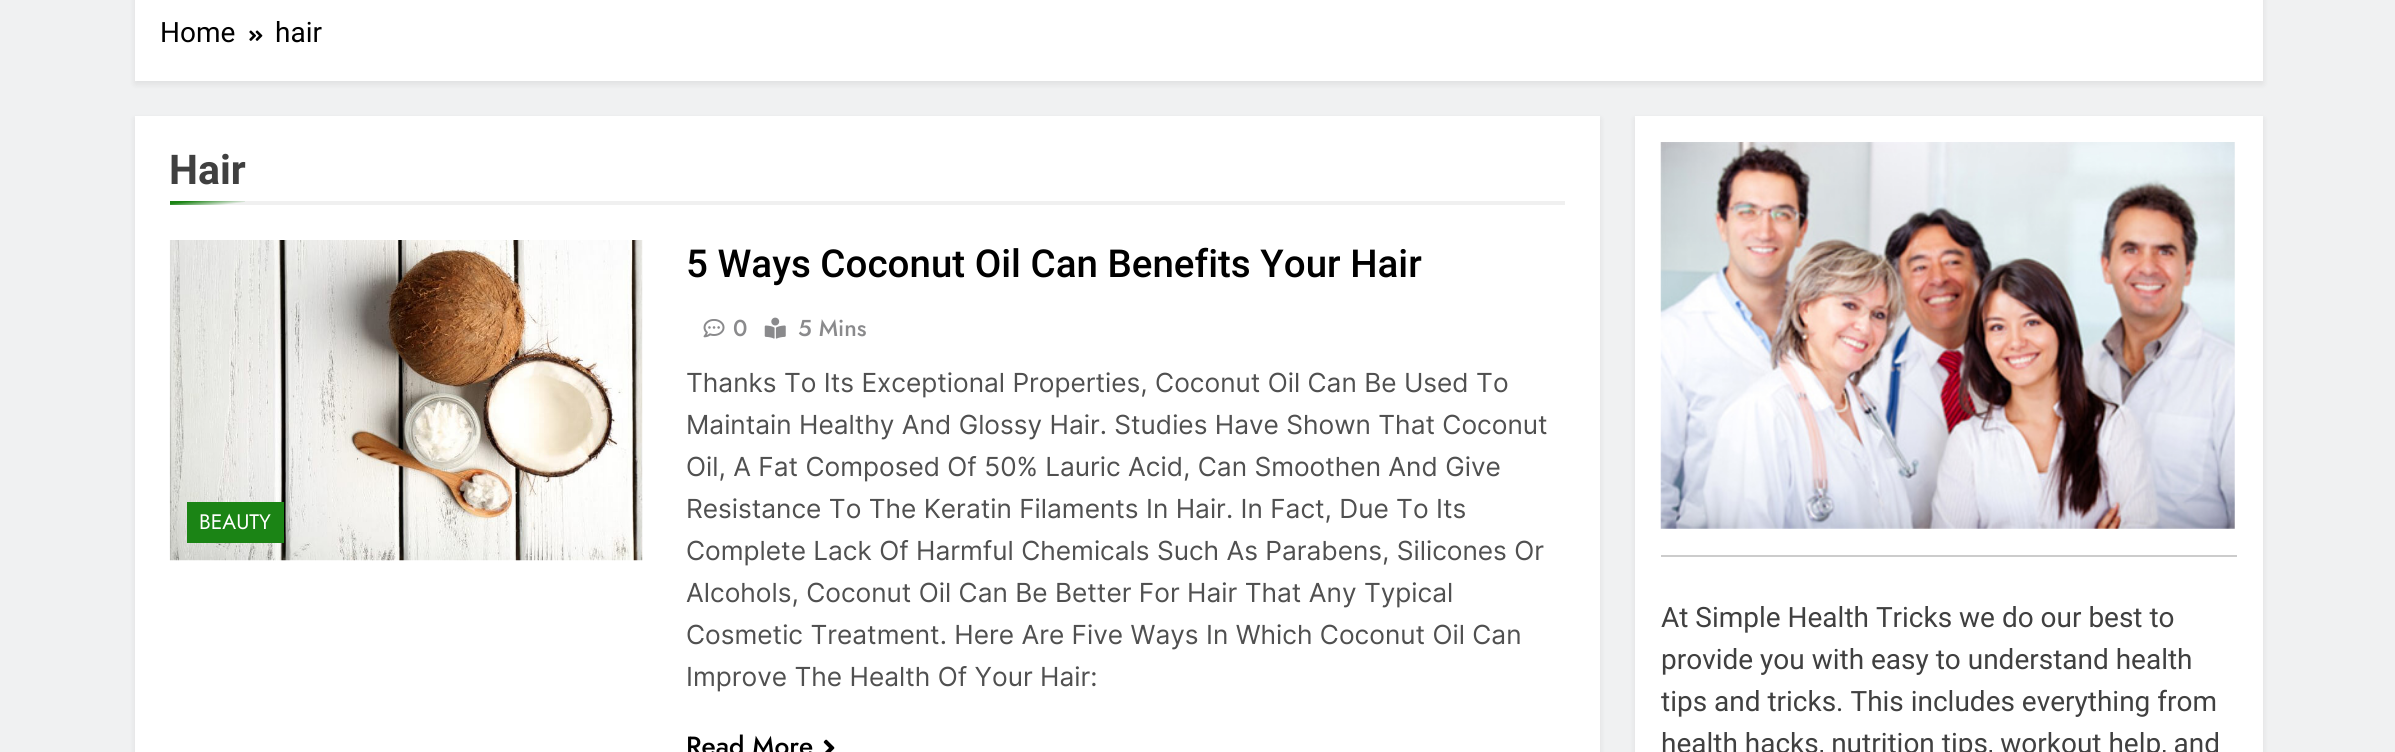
import math
import cairocffi as cairo

surface = cairo.ImageSurface(cairo.FORMAT_RGB24, 2395, 752)
ctx = cairo.Context(surface)
options = cairo.FontOptions()
options.set_hint_metrics(cairo.HINT_METRICS_OFF)
options.set_hint_style(cairo.HINT_STYLE_NONE)
ctx.set_font_options(options)
ctx.set_miter_limit(4)


def rgb(r, g, b):
    ctx.set_source_rgb(r / 255, g / 255, b / 255)


def face(family, size, italic, bold):
    ctx.select_font_face(family, cairo.FONT_SLANT_ITALIC if italic else cairo.FONT_SLANT_NORMAL, cairo.FONT_WEIGHT_BOLD if bold else cairo.FONT_WEIGHT_NORMAL)
    ctx.set_font_size(size)


def label(x, y, s):
    ctx.move_to(x, y)
    ctx.show_text(s)


def rect(x, y, w, h):
    ctx.rectangle(x, y, w, h)
    ctx.fill()


def rrect(x, y, w, h, r):
    ctx.new_sub_path()
    for i, (u, v) in enumerate([(x + w - r, y + h - r), (x + r, y + h - r), (x + r, y + r), (x + w - r, y + r)]):
        ctx.arc(u, v, r, i * math.pi / 2, (i + 1) * math.pi / 2)
    ctx.close_path()


def soft_shadow(x, y, w, h, r, blur, alpha):
    ctx.push_group_with_content(cairo.CONTENT_ALPHA)
    ctx.set_operator(cairo.OPERATOR_SOURCE)
    for i in range(15, -16, -2):
        e = blur * i / 6
        if min(w, h) + 2 * e > 0:
            ctx.set_source_rgba(0, 0, 0, alpha * math.erfc((i - 1) / 8.5) / 2)
            rrect(x - e, y - e, w + 2 * e, h + 2 * e, max(0, min(r + e + blur * .6, min(w, h) / 2 + e)))
            ctx.fill()
    ctx.mask(ctx.pop_group())


def image(path, x, y, w, h):
    ctx.save()
    ctx.set_source_surface(cairo.ImageSurface.create_from_png(path), x, y)
    ctx.rectangle(x, y, w, h)
    ctx.fill()
    ctx.restore()


rgb(240, 241, 242)
ctx.paint()
rgb(0, 0, 0)
soft_shadow(135, -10, 2128, 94, 0, 3.5, 0.08)
rgb(255, 255, 255)
rect(135, 0, 2128, 81)
face('Roboto', 28, 0, 0)
rgb(0, 0, 0)
label(160, 42, 'Home')
image('image0.png', 249, 30, 14, 11)
label(275, 42, 'hair')
rgb(0, 0, 0)
soft_shadow(135, 119, 1465, 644, 0, 3.5, 0.08)
rgb(255, 255, 255)
rect(135, 116, 1465, 636)
rgb(240, 240, 240)
rect(245, 201, 1320, 4)
face('Roboto', 41, 0, 1)
rgb(64, 64, 64)
label(169, 184, 'Hair')
gradient = cairo.LinearGradient(207, 199, 208, 207)
gradient.add_color_stop_rgba(0, 0.106, 0.518, 0.082, 1)
gradient.add_color_stop_rgba(1, 0.941, 0.941, 0.941, 1)
ctx.set_source(gradient)
rect(170, 201, 75, 4)
image('image1.png', 169, 240, 474, 321)
rgb(27, 132, 21)
rect(187, 502, 97, 41)
face('Jost', 21, 0, 0)
rgb(255, 255, 255)
label(199, 529, 'BEAUTY')
face('Roboto Medium', 38.5, 0, 0)
rgb(0, 0, 0)
label(686, 277, '5 Ways Coconut Oil Can Benefits Your Hair')
image('image2.png', 703, 319, 22, 19)
face('Jost Medium', 23, 0, 0)
rgb(138, 138, 140)
label(733, 336, '0')
image('image3.png', 764, 317, 22, 22)
label(798, 336, '5 Mins')
face('Inter', 26.25, 0, 0)
rgb(80, 80, 80)
label(686, 392, 'Thanks To Its Exceptional Properties, Coconut Oil Can Be Used To')
label(686, 434, 'Maintain Healthy And Glossy Hair. Studies Have Shown That Coconut')
label(686, 476, 'Oil, A Fat Composed Of 50% Lauric Acid, Can Smoothen And Give')
label(686, 518, 'Resistance To The Keratin Filaments In Hair. In Fact, Due To Its')
label(686, 560, 'Complete Lack Of Harmful Chemicals Such As Parabens, Silicones Or')
label(686, 602, 'Alcohols, Coconut Oil Can Be Better For Hair That Any Typical')
label(686, 644, 'Cosmetic Treatment. Here Are Five Ways In Which Coconut Oil Can')
label(686, 686, 'Improve The Health Of Your Hair:')
face('Jost Medium', 26.25, 0, 0)
rgb(0, 0, 0)
label(686, 755, 'Read More')
image('image4.png', 823, 739, 12, 13)
rgb(0, 0, 0)
soft_shadow(1635, 119, 628, 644, 0, 3.5, 0.08)
rgb(255, 255, 255)
rect(1635, 116, 628, 636)
image('image5.png', 1660, 142, 575, 387)
rgb(204, 204, 204)
rect(1661, 555, 576, 2)
face('Roboto', 28, 0, 0)
rgb(64, 64, 64)
label(1661, 627, 'At Simple Health Tricks we do our best to')
label(1661, 669, 'provide you with easy to understand health')
label(1661, 711, 'tips and tricks. This includes everything from')
label(1661, 753, 'health hacks, nutrition tips, workout help, and')
surface.write_to_png('render.png')
